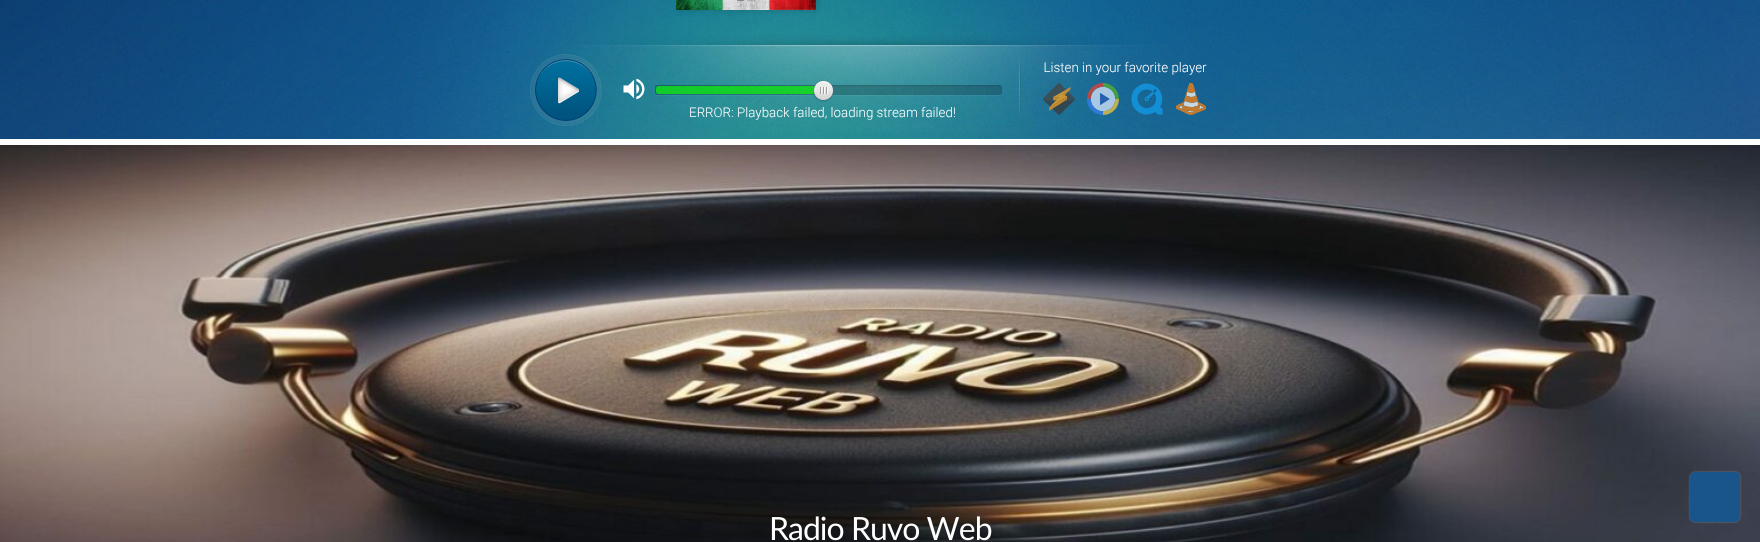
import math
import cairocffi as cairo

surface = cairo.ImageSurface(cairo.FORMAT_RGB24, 1760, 542)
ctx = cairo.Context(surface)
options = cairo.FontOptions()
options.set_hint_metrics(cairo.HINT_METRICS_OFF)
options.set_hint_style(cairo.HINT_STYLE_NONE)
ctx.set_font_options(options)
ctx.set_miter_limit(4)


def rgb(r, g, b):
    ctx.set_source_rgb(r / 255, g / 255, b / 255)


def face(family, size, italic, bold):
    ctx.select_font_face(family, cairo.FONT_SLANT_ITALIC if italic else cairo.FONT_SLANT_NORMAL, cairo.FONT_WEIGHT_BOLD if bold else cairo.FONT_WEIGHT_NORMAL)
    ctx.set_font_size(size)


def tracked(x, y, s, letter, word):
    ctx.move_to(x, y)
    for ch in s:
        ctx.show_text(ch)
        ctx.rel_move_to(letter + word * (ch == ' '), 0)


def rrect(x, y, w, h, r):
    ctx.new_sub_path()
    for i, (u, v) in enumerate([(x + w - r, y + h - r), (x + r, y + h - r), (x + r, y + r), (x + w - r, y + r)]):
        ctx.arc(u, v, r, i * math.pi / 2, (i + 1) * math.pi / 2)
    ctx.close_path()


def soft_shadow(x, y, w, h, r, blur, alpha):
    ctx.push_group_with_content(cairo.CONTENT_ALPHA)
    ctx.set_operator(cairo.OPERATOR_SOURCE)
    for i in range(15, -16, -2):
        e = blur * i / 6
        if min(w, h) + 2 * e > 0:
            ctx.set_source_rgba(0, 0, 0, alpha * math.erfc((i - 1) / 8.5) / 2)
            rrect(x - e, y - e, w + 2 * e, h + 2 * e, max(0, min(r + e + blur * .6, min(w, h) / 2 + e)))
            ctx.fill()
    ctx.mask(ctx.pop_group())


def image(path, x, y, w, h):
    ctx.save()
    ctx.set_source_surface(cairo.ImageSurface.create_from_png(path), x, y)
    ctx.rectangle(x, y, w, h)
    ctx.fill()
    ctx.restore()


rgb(255, 255, 255)
ctx.paint()
image('image0.png', 0, 0, 1760, 139)
image('image1.png', 0, 145, 1760, 397)
soft_shadow(1690, 472, 50, 50, 5, 1, 0.3)
rgb(25, 84, 139)
rrect(1690, 472, 50, 50, 5)
ctx.fill()
face('Lato', 32, 0, 0)
rgb(255, 255, 255)
tracked(769, 540, 'Radio Ruvo Web', -1, 0)
surface.write_to_png('render.png')
